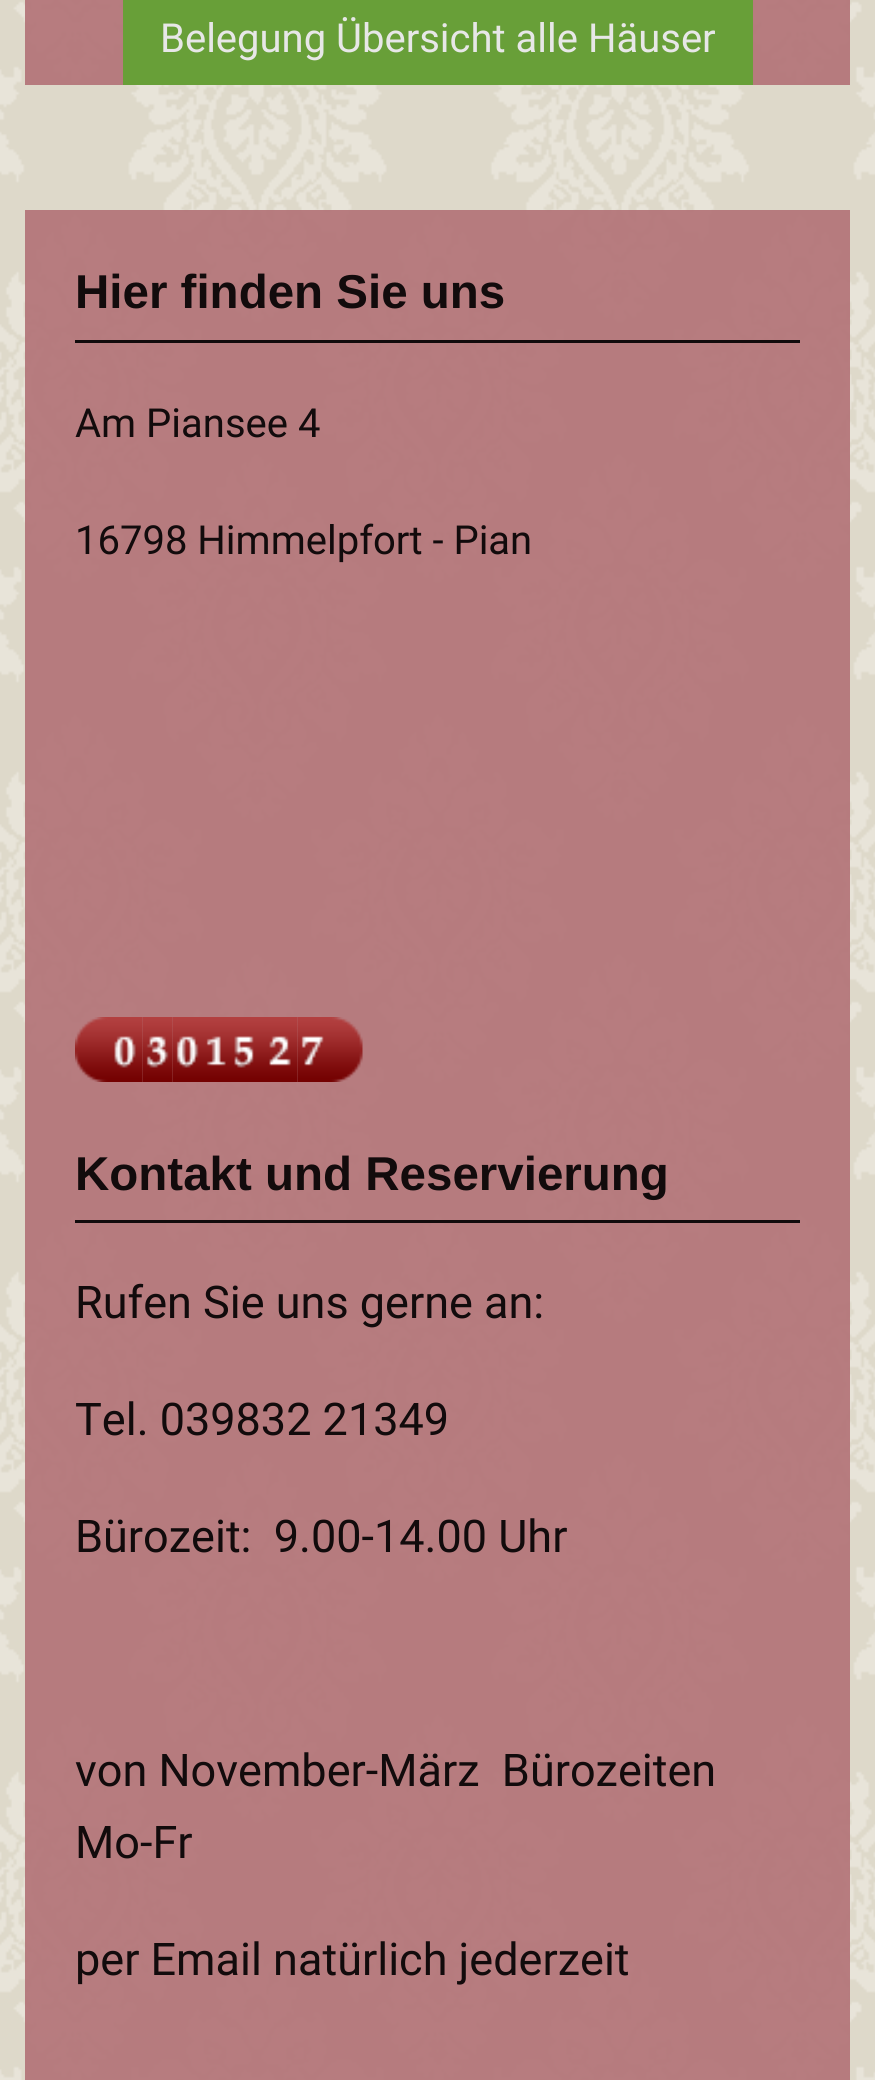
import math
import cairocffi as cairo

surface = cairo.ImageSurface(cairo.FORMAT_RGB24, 875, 2080)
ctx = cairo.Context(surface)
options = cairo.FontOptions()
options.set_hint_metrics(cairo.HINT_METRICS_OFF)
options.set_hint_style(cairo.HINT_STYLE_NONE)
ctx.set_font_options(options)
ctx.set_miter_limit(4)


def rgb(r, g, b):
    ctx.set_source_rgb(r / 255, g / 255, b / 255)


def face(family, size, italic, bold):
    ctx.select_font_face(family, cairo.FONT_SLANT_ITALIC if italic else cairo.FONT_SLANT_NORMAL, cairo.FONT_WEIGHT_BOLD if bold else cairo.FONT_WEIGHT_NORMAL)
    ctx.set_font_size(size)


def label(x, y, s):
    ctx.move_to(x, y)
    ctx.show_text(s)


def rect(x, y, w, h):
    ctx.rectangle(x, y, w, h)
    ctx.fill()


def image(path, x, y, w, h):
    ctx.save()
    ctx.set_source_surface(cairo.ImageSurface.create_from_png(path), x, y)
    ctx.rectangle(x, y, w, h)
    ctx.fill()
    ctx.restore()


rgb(255, 255, 255)
ctx.paint()
image('image0.png', 0, 0, 875, 2080)
ctx.set_source_rgba(0.698, 0.443, 0.463, 0.9)
rect(25, 0, 825, 85)
rgb(104, 159, 56)
rect(123, 0, 630, 85)
face('Roboto', 40, 0, 0)
rgb(231, 231, 231)
label(160, 52, 'Belegung Übersicht alle Häuser')
ctx.set_source_rgba(0.698, 0.443, 0.463, 0.9)
rect(25, 210, 825, 1870)
rgb(18, 11, 12)
rect(75, 340, 725, 3)
face('Liberation Sans', 47.5, 0, 1)
label(75, 308, 'Hier finden Sie uns')
face('Roboto', 40, 0, 0)
label(75, 437, 'Am Piansee 4')
label(75, 554, '16798 Himmelpfort - Pian')
image('image1.png', 75, 1017, 35, 65)
image('image2.png', 110, 1017, 33, 65)
image('image3.png', 142, 1017, 31, 65)
image('image4.png', 172, 1017, 33, 65)
image('image5.png', 205, 1017, 25, 65)
image('image6.png', 230, 1017, 35, 65)
image('image7.png', 265, 1017, 33, 65)
image('image8.png', 297, 1017, 33, 65)
image('image9.png', 330, 1017, 33, 65)
rect(75, 1220, 725, 3)
face('Liberation Sans', 47.5, 0, 1)
label(75, 1190, 'Kontakt und Reservierung')
face('Roboto', 45, 0, 0)
label(75, 1318, 'Rufen Sie uns gerne an:')
label(75, 1435, 'Tel. 039832 21349')
label(75, 1552, 'Bürozeit:  9.00-14.00 Uhr')
label(75, 1786, 'von November-März  Bürozeiten')
label(75, 1858, 'Mo-Fr')
label(75, 1975, 'per Email natürlich jederzeit')
surface.write_to_png('render.png')
